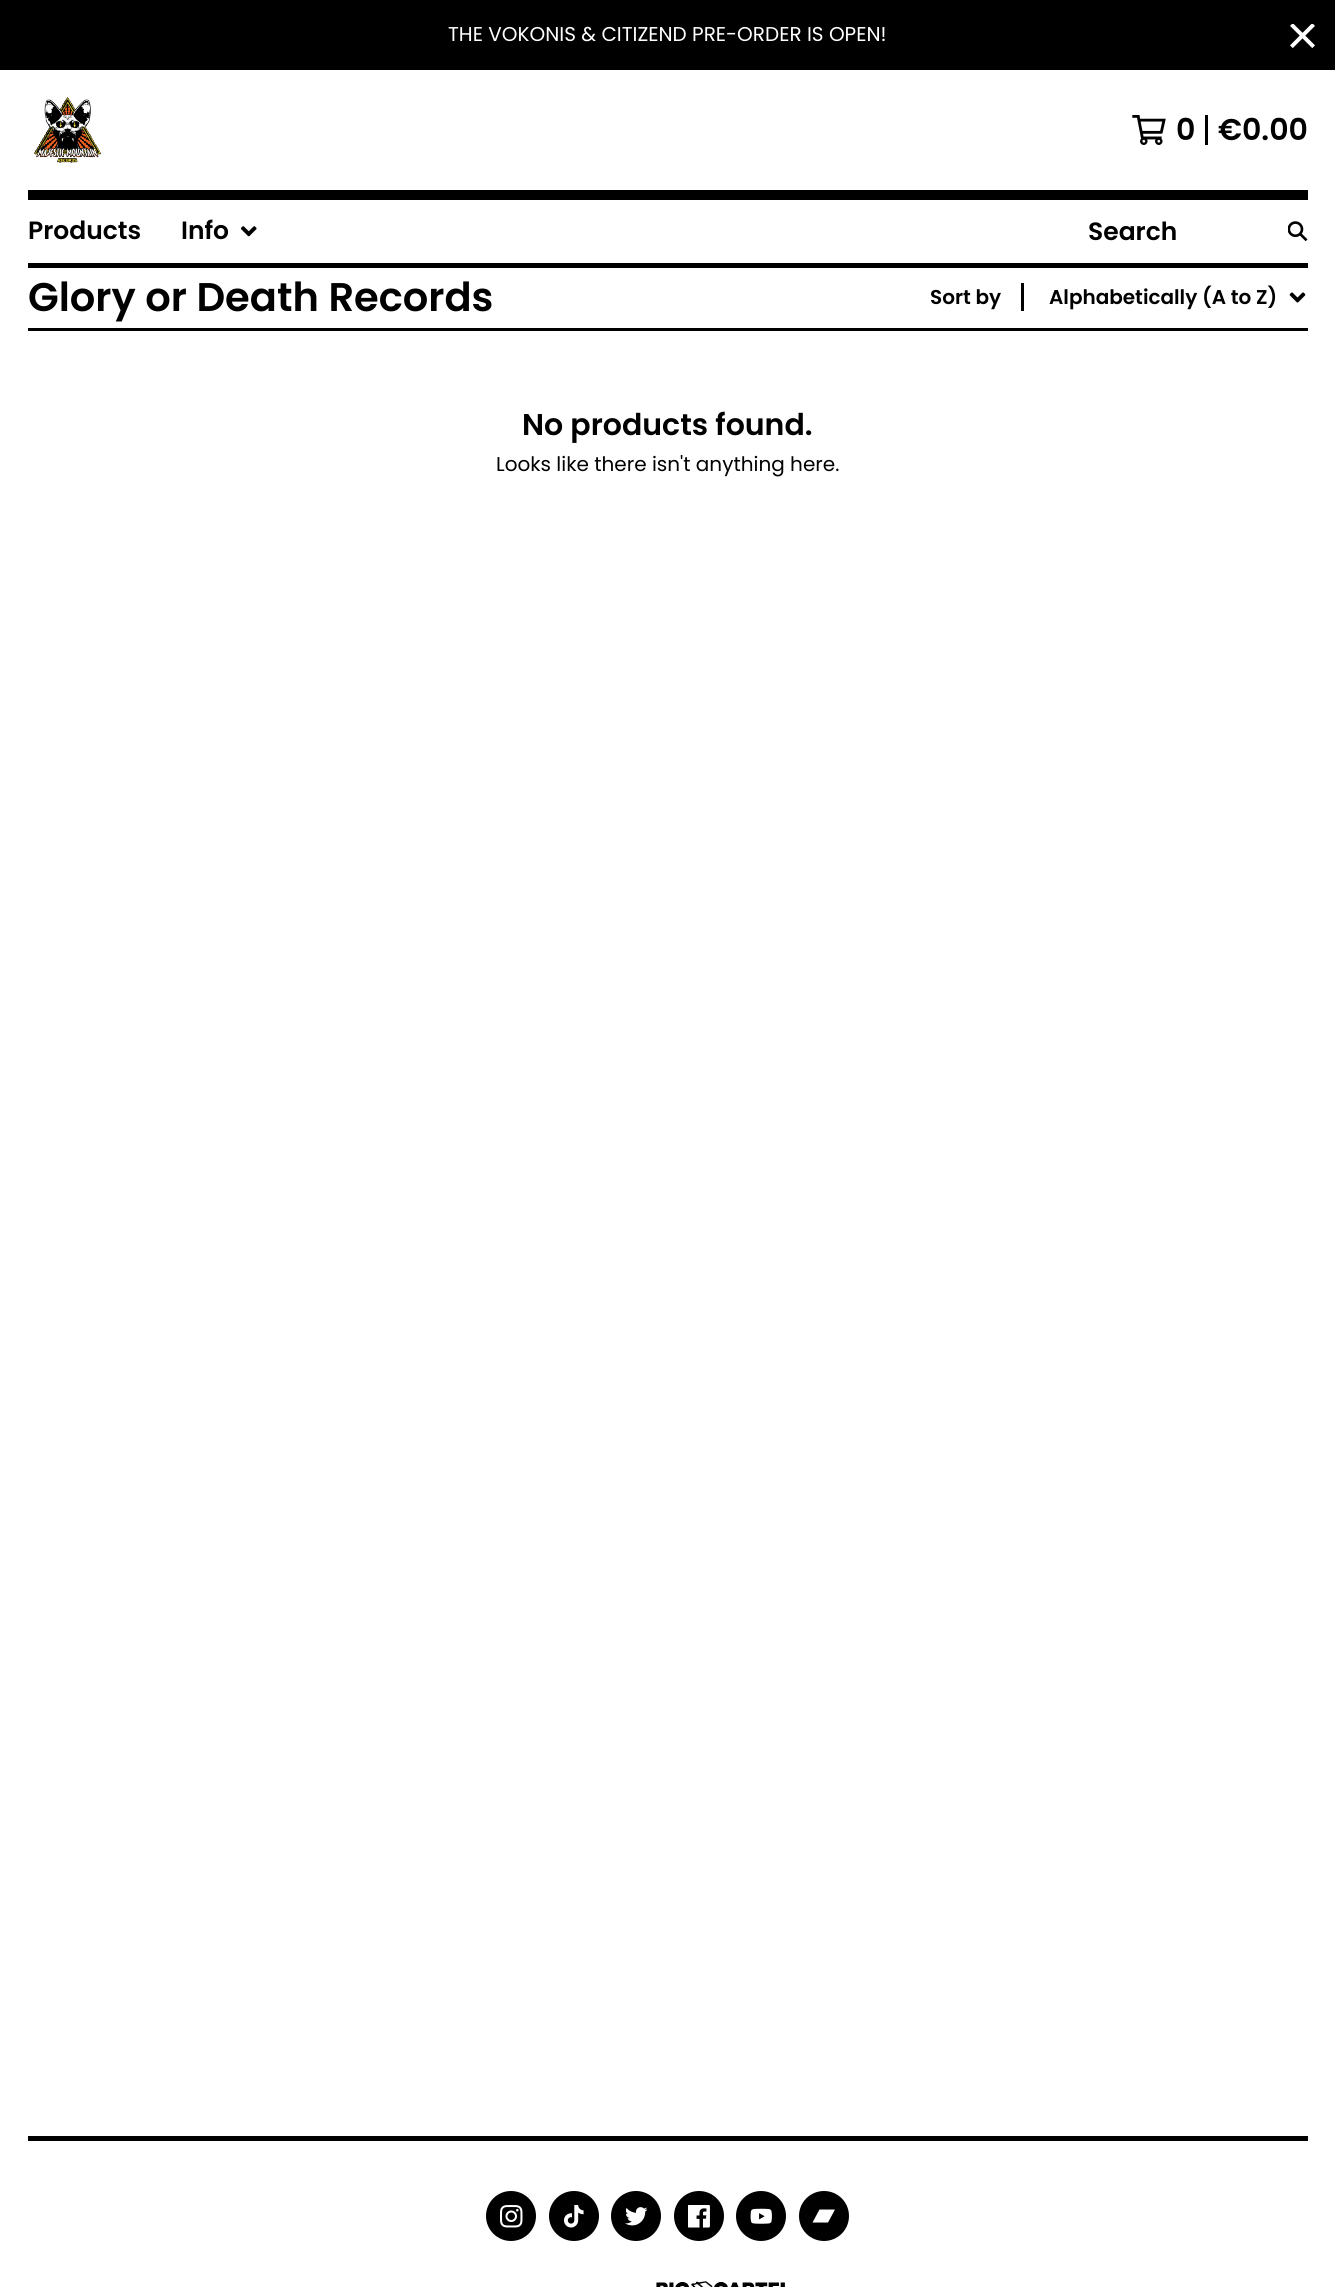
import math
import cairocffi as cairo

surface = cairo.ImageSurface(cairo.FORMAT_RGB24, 1335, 2287)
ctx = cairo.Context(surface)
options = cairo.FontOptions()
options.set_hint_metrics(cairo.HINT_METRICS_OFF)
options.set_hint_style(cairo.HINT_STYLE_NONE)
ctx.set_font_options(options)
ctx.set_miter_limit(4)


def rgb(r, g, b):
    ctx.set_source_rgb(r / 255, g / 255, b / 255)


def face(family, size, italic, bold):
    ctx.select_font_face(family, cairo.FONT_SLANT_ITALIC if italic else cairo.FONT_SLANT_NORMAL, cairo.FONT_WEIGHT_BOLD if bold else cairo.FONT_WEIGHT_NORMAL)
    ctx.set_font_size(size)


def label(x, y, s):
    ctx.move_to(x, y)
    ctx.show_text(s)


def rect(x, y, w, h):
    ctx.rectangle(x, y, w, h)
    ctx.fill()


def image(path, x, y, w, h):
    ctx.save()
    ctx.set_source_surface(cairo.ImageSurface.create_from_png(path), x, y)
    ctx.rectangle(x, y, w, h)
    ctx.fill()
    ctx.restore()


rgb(255, 255, 255)
ctx.paint()
rgb(0, 0, 0)
rect(0, 0, 1335, 70)
face('Poppins', 20, 0, 0)
rgb(255, 255, 255)
label(448, 41, 'THE VOKONIS & CITIZEND PRE-ORDER IS OPEN!')
image('image0.png', 1290, 24, 25, 24)
rgb(0, 0, 0)
rect(28, 190, 1280, 10)
image('image1.png', 34, 97, 68, 66)
image('image2.png', 1132, 115, 34, 30)
rect(1205, 115, 3, 30)
face('Poppins SemiBold', 30, 0, 0)
label(1176, 140, '0')
label(1218, 140, '€0.00')
rect(28, 263, 1280, 5)
face('Poppins SemiBold', 25, 0, 0)
label(28, 239, 'Products')
label(181, 239, 'Info')
image('image3.png', 240, 226, 17, 11)
label(1088, 240, 'Search')
image('image4.png', 1288, 221, 20, 20)
rect(28, 328, 1280, 3)
face('Poppins SemiBold', 40, 0, 0)
label(28, 311, 'Glory or Death Records')
face('Poppins SemiBold', 20, 0, 0)
label(930, 304, 'Sort by')
rect(1021, 283, 3, 28)
label(1049, 304, 'Alphabetically (A to Z)')
image('image5.png', 1289, 292, 17, 11)
face('Poppins SemiBold', 30, 0, 0)
label(522, 435, 'No products found.')
face('Poppins', 20, 0, 0)
label(496, 471, 'Looks like there isn\'t anything here.')
rect(28, 2136, 1280, 5)
ctx.new_path()
ctx.arc(511, 2216, 25, 0, 2 * math.pi)
ctx.fill()
image('image6.png', 500, 2205, 23, 23)
ctx.arc(574, 2216, 25, 0, 2 * math.pi)
ctx.fill()
image('image7.png', 563, 2205, 21, 23)
ctx.arc(636, 2216, 25, 0, 2 * math.pi)
ctx.fill()
image('image8.png', 625, 2207, 23, 19)
ctx.arc(699, 2216, 25, 0, 2 * math.pi)
ctx.fill()
image('image9.png', 688, 2205, 22, 23)
ctx.arc(761, 2216, 25, 0, 2 * math.pi)
ctx.fill()
image('image10.png', 750, 2208, 22, 16)
ctx.arc(824, 2216, 25, 0, 2 * math.pi)
ctx.fill()
rgb(255, 255, 255)
ctx.new_path()
ctx.move_to(828, 2222.5)
ctx.line_to(812.5, 2222.5)
ctx.line_to(819.5, 2209.5)
ctx.line_to(835, 2209.5)
ctx.close_path()
ctx.fill()
image('image11.png', 656, 2281, 129, 6)
surface.write_to_png('render.png')
